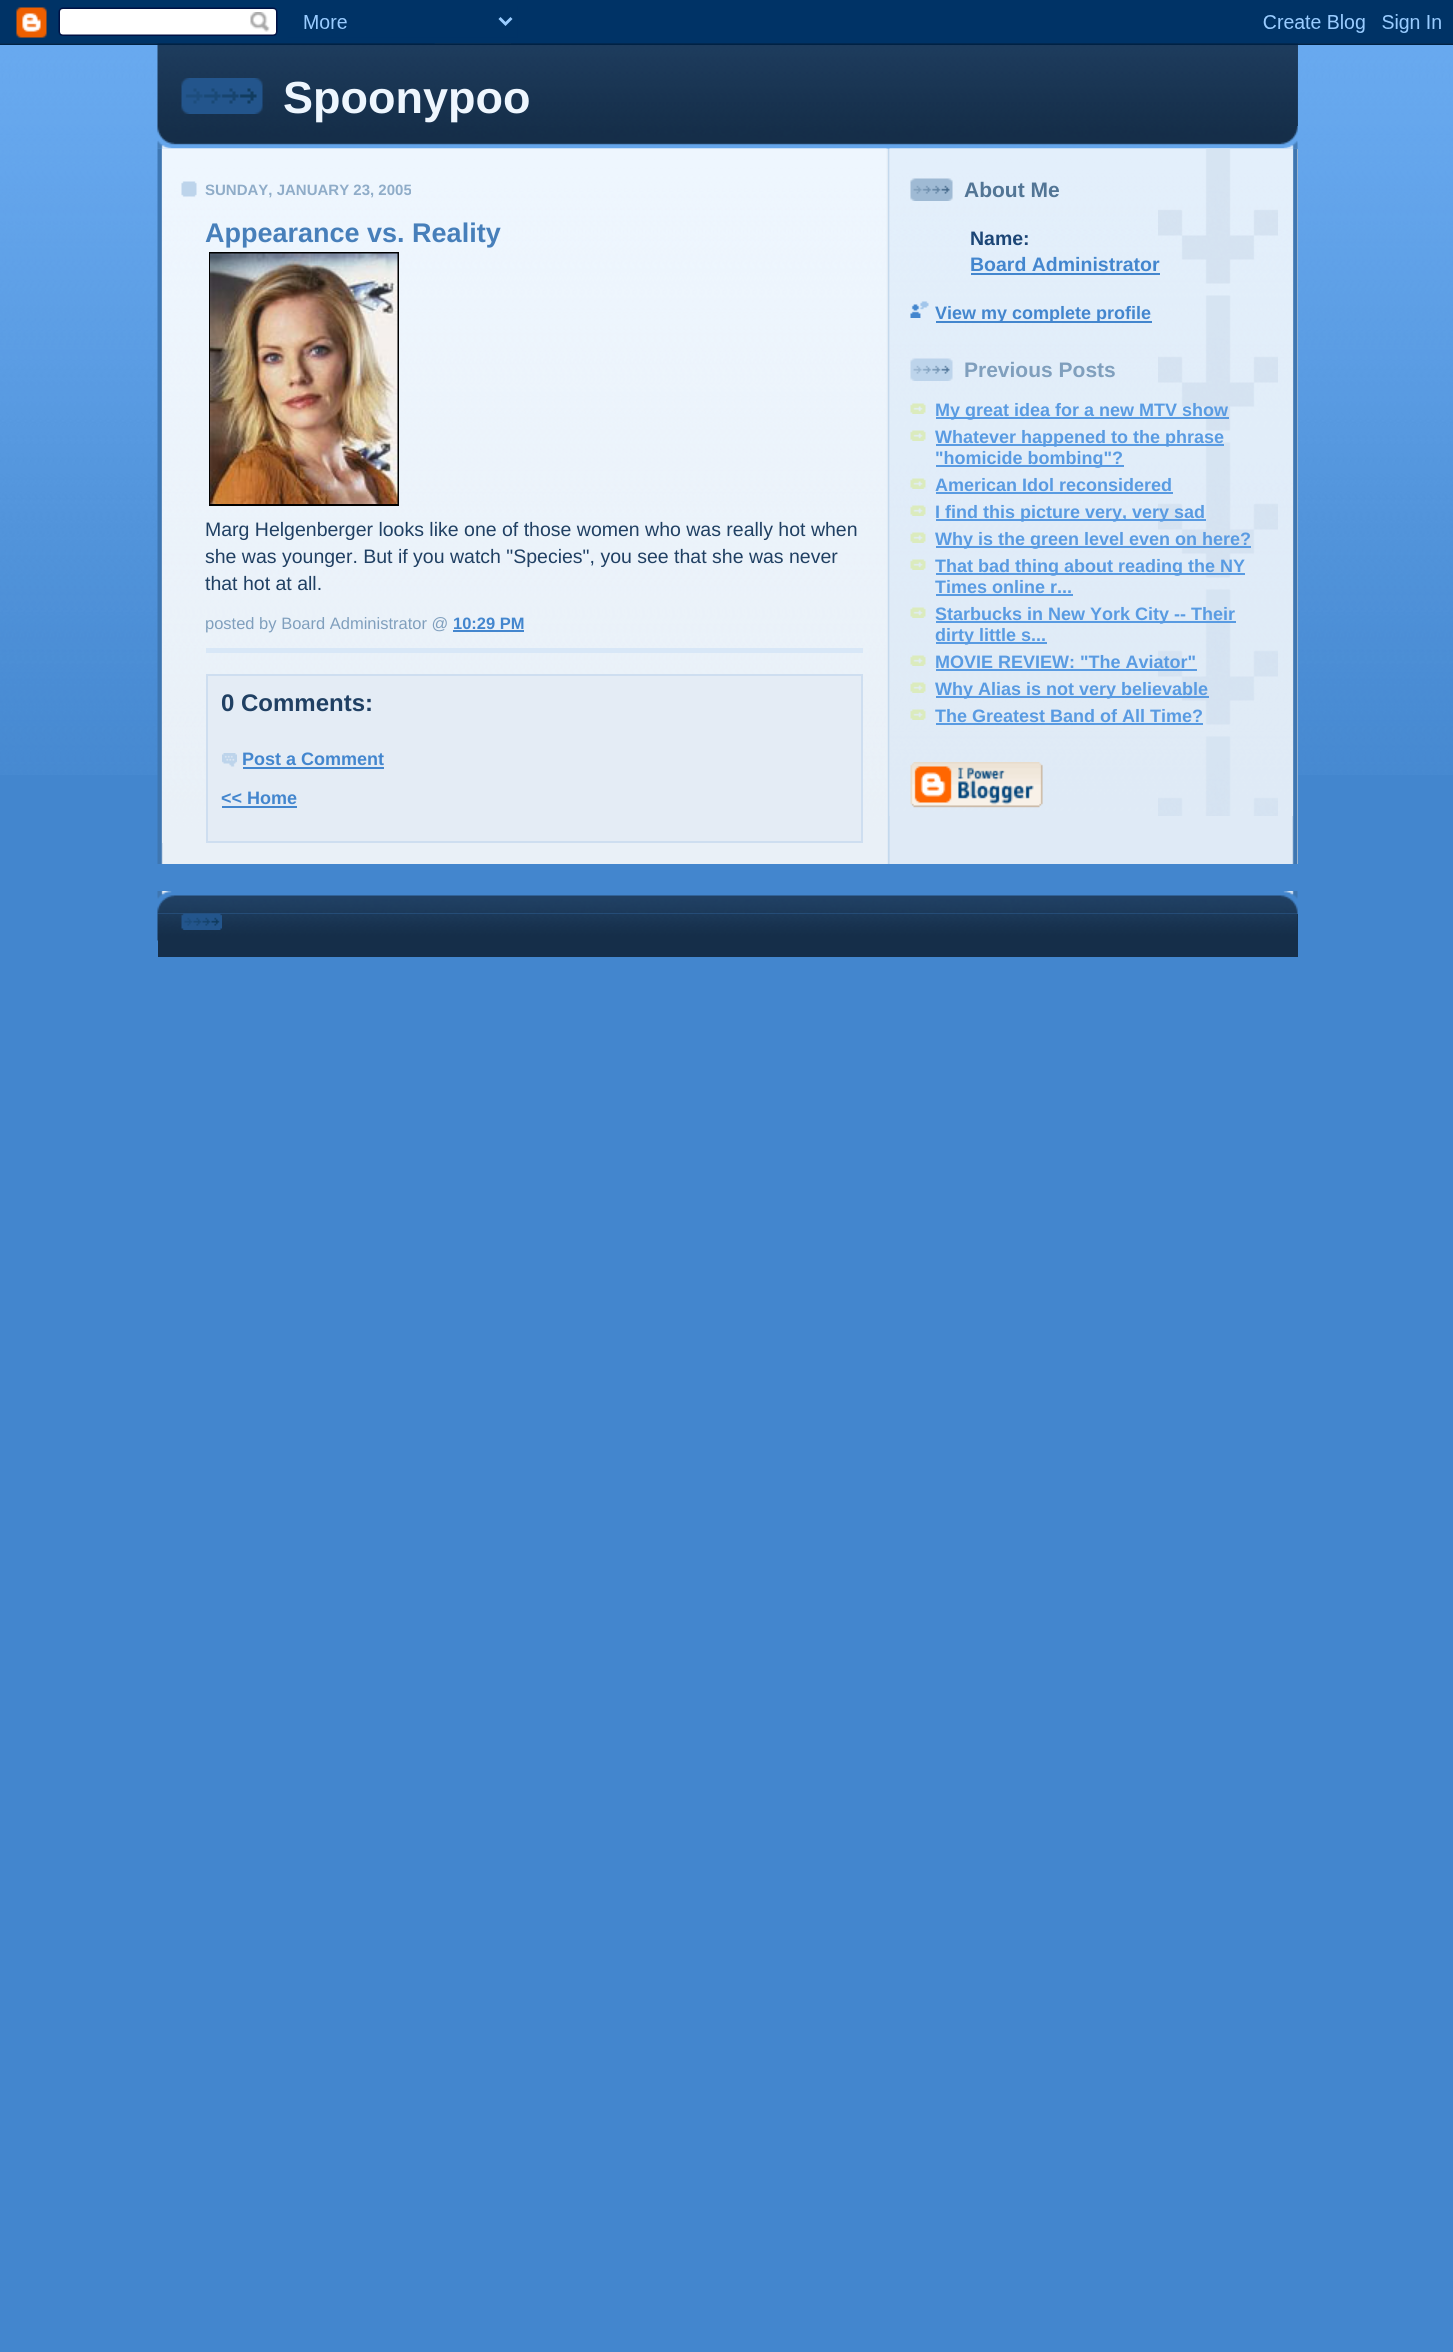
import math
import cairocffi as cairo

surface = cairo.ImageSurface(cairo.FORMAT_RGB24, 1453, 2352)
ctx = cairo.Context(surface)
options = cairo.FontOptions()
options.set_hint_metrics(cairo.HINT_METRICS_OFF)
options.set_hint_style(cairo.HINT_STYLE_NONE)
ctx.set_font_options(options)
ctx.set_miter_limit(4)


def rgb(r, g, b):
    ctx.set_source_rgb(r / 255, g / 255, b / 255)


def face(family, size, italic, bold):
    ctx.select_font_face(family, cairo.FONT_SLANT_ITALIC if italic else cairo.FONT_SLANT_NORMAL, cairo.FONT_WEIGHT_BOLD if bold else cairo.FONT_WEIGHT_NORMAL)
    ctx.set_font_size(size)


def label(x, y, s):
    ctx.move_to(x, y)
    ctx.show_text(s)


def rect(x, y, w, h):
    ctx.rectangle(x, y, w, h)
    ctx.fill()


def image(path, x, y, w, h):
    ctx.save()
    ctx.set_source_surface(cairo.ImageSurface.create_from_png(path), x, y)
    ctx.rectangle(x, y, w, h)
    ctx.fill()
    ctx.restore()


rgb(67, 134, 206)
ctx.paint()
image('image0.png', 0, 43, 1453, 732)
rgb(32, 64, 99)
rect(1297, 43, 1, 83)
image('image3.png', 157, 43, 1141, 83)
image('image1.png', 0, 0, 1453, 45)
image('image2.png', 157, 126, 1141, 23)
image('image4.png', 181, 78, 82, 36)
face('Liberation Sans', 45, 0, 1)
rgb(238, 246, 254)
label(283, 113, 'Spoonypoo')
rgb(247, 240, 233)
rect(1297, 149, 1, 715)
image('image5.png', 157, 148, 1141, 716)
image('image6.png', 162, 148, 725, 695)
image('image7.png', 181, 181, 16, 16)
face('Liberation Sans', 15, 0, 1)
rgb(143, 172, 200)
label(205, 195, 'SUNDAY, JANUARY 23, 2005')
rgb(216, 231, 247)
rect(206, 648, 657, 5)
face('Liberation Sans', 27, 0, 1)
rgb(71, 127, 186)
label(205, 242, 'Appearance vs. Reality')
ctx.rectangle(210, 253, 188, 252)
rgb(0, 0, 0)
ctx.stroke()
image('image8.png', 210, 253, 188, 251)
face('Liberation Sans', 19.5, 0, 0)
rgb(32, 64, 99)
label(205, 536, 'Marg Helgenberger looks like one of those women who was really hot when')
label(205, 563, 'she was younger. But if you watch "Species", you see that she was never')
label(205, 590, 'that hot at all.')
face('Liberation Sans', 16.5, 0, 0)
rgb(128, 159, 189)
label(205, 629, 'posted by Board Administrator @')
face('Liberation Sans', 16.5, 0, 1)
rgb(67, 134, 206)
label(453, 629, '10:29 PM')
rect(453, 630, 71, 2)
rgb(228, 236, 245)
ctx.rectangle(207, 675, 655, 167)
ctx.fill_preserve()
rgb(206, 222, 240)
ctx.stroke()
face('Liberation Sans', 24, 0, 1)
rgb(32, 64, 99)
label(221, 711, '0 Comments:')
image('image9.png', 222, 753, 15, 14)
face('Liberation Sans', 18, 0, 1)
rgb(67, 134, 206)
label(242, 765, 'Post a Comment')
rect(243, 767, 141, 2)
label(221, 804, '<< Home')
rect(222, 806, 75, 2)
image('image10.png', 889, 148, 404, 668)
image('image11.png', 1158, 148, 120, 668)
image('image12.png', 910, 178, 43, 23)
face('Liberation Sans', 21, 0, 1)
rgb(82, 117, 149)
label(964, 197, 'About Me')
face('Liberation Sans', 19.5, 0, 1)
rgb(28, 70, 118)
label(970, 245, 'Name:')
rgb(67, 134, 206)
label(970, 271, 'Board Administrator')
rect(971, 273, 189, 2)
image('image13.png', 910, 301, 19, 17)
rect(936, 321, 216, 2)
face('Liberation Sans', 18, 0, 1)
label(935, 319, 'View my complete profile')
image('image14.png', 910, 358, 43, 23)
face('Liberation Sans', 21, 0, 1)
rgb(128, 159, 189)
label(964, 377, 'Previous Posts')
image('image15.png', 910, 403, 16, 11)
rgb(89, 155, 226)
rect(936, 417, 293, 2)
face('Liberation Sans', 18, 0, 1)
label(935, 416, 'My great idea for a new MTV show')
image('image16.png', 910, 430, 16, 11)
rect(936, 444, 288, 2)
label(935, 443, 'Whatever happened to the phrase')
rect(936, 465, 188, 2)
label(935, 464, '"homicide bombing"?')
image('image17.png', 910, 478, 16, 11)
label(935, 491, 'American Idol reconsidered')
rect(936, 492, 237, 2)
image('image18.png', 910, 505, 16, 11)
rect(936, 519, 270, 2)
label(935, 518, 'I find this picture very, very sad')
image('image19.png', 910, 532, 16, 11)
rect(936, 546, 315, 2)
label(935, 545, 'Why is the green level even on here?')
image('image20.png', 910, 559, 16, 11)
rect(936, 573, 309, 2)
label(935, 572, 'That bad thing about reading the NY')
label(935, 593, 'Times online r...')
rect(936, 594, 137, 2)
image('image21.png', 910, 607, 16, 11)
rect(936, 621, 300, 2)
label(935, 620, 'Starbucks in New York City -- Their')
rect(936, 642, 111, 2)
label(935, 641, 'dirty little s...')
image('image22.png', 910, 655, 16, 11)
label(935, 668, 'MOVIE REVIEW: "The Aviator"')
rect(936, 669, 261, 2)
image('image23.png', 910, 682, 16, 11)
rect(936, 696, 273, 2)
label(935, 695, 'Why Alias is not very believable')
image('image24.png', 910, 709, 16, 11)
label(935, 722, 'The Greatest Band of All Time?')
rect(936, 723, 267, 2)
image('image25.png', 910, 762, 133, 46)
image('image26.png', 157, 891, 1141, 23)
rgb(21, 46, 73)
rect(158, 914, 1140, 43)
image('image27.png', 157, 913, 1141, 28)
image('image28.png', 181, 913, 41, 17)
surface.write_to_png('render.png')
